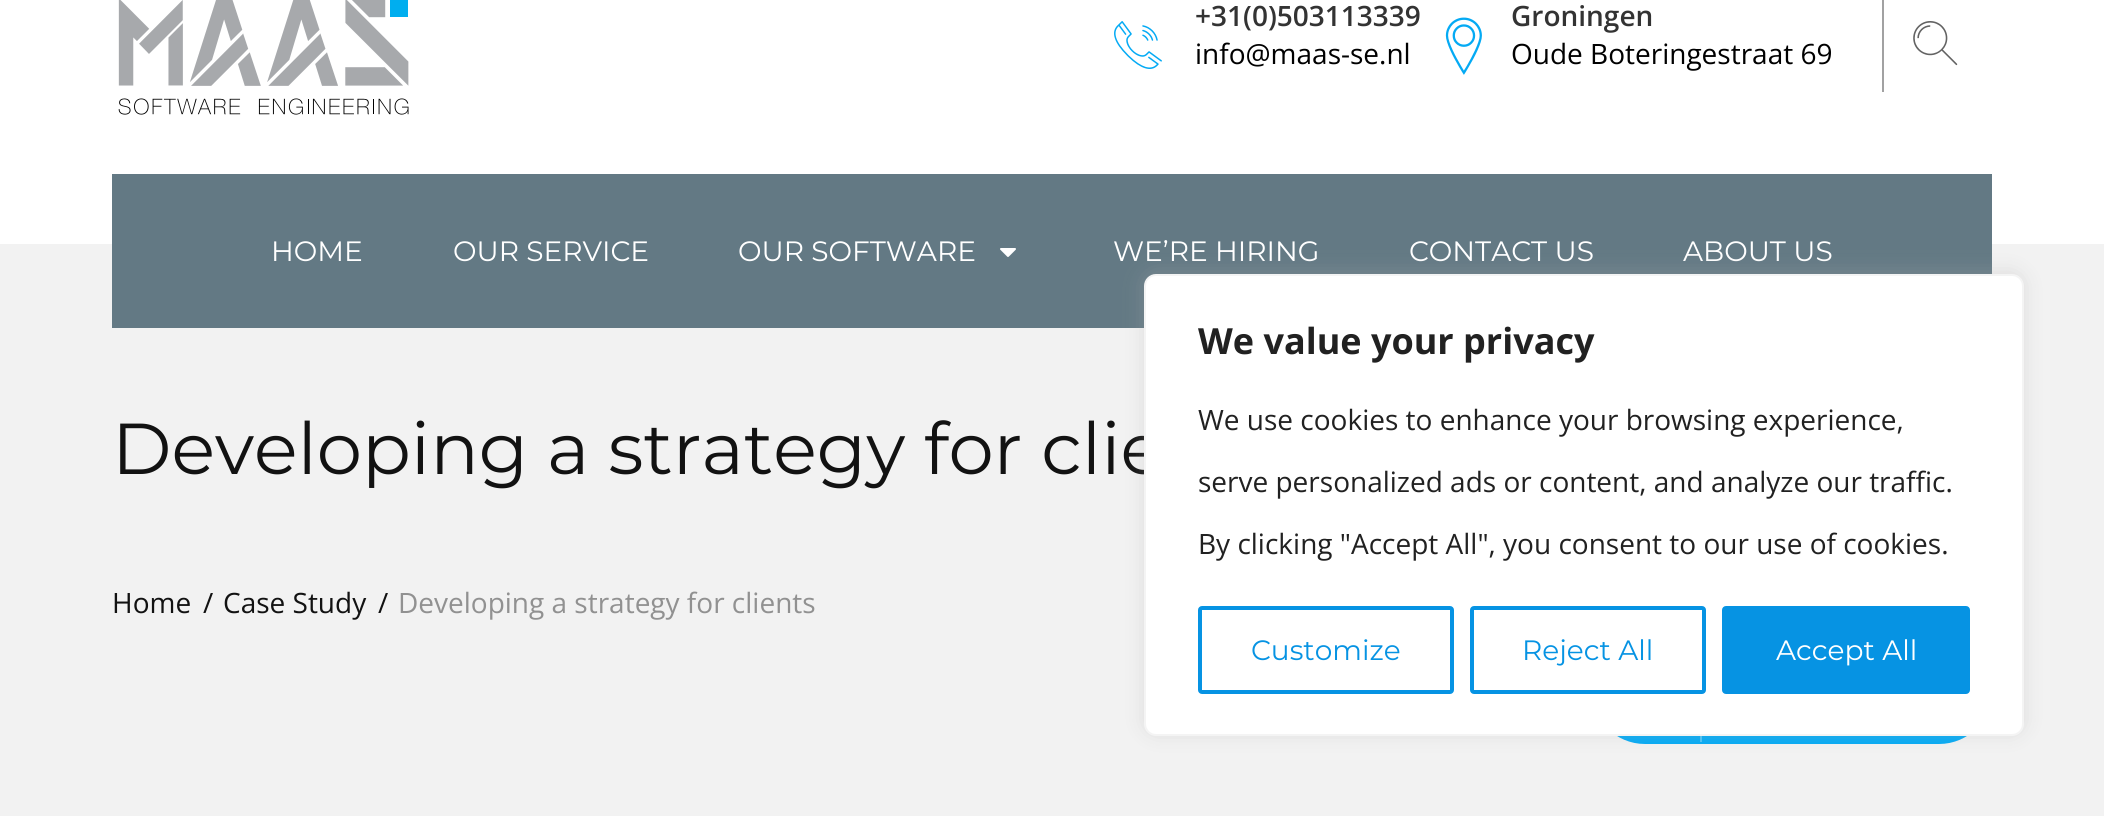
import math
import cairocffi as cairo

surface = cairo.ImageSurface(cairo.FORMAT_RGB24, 2104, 816)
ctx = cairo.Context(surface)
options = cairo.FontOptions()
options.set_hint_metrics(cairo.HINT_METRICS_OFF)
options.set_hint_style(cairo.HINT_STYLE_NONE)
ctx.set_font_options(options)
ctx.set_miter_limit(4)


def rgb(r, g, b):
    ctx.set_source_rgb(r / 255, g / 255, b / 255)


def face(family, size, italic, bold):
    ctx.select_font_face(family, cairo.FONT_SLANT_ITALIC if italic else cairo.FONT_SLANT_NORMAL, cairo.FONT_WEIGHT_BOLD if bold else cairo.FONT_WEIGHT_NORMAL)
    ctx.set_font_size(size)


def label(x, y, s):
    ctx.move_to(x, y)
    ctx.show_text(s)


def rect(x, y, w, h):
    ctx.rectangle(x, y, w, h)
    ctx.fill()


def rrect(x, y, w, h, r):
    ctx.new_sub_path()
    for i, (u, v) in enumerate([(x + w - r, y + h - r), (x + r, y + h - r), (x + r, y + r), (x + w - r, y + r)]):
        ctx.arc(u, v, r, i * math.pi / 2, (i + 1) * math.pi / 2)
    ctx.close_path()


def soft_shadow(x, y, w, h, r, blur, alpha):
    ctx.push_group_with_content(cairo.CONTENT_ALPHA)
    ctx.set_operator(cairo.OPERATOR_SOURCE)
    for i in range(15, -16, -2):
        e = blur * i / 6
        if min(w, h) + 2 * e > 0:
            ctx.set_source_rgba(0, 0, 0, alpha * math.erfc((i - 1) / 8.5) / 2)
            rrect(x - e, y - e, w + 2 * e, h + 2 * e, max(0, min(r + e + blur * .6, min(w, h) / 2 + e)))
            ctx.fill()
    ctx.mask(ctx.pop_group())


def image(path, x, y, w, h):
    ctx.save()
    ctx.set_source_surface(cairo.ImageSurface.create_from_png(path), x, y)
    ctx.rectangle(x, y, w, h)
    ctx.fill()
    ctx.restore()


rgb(255, 255, 255)
ctx.paint()
image('image0.png', 118, 0, 291, 115)
image('image1.png', 1114, 21, 48, 48)
face('Open Sans SemiBold', 28, 0, 0)
rgb(51, 51, 51)
label(1195, 26, '+31(0)503113339')
face('Open Sans', 28, 0, 0)
rgb(0, 0, 0)
label(1195, 64, 'info@maas-se.nl')
image('image2.png', 1445, 17, 37, 58)
face('Open Sans SemiBold', 28, 0, 0)
rgb(51, 51, 51)
label(1511, 26, 'Groningen')
face('Open Sans', 28, 0, 0)
rgb(0, 0, 0)
label(1511, 64, 'Oude Boteringestraat 69')
rgb(161, 161, 162)
rect(1882, 0, 2, 92)
image('image3.png', 1913, 21, 45, 45)
rgb(242, 242, 242)
rect(0, 244, 2104, 572)
rgb(99, 121, 132)
rect(112, 174, 1880, 154)
face('Montserrat', 28, 0, 0)
rgb(255, 255, 255)
label(271, 261, 'HOME')
label(453, 261, 'OUR SERVICE')
label(738, 261, 'OUR SOFTWARE')
image('image4.png', 1000, 248, 16, 9)
label(1113, 261, 'WE’RE HIRING')
label(1409, 261, 'CONTACT US')
label(1683, 261, 'ABOUT US')
face('Montserrat', 72, 0, 0)
rgb(18, 18, 18)
label(112, 474, 'Developing a strategy for clie')
face('Open Sans', 28, 0, 0)
label(112, 613, 'Home')
label(203, 613, '/')
label(223, 613, 'Case Study')
label(378, 613, '/')
rgb(145, 145, 145)
label(398, 613, 'Developing a strategy for clients')
rgb(4, 170, 244)
rrect(1592, 638, 400, 106, 53)
ctx.fill()
rgb(74, 194, 247)
rect(1700, 736, 2, 6)
rgb(172, 171, 171)
soft_shadow(1144, 272, 880, 462, 12, 10, 0.3)
rgb(255, 255, 255)
rrect(1145, 275, 878, 460, 11)
ctx.fill_preserve()
rgb(244, 244, 244)
ctx.stroke()
face('Open Sans', 36, 0, 1)
rgb(33, 33, 33)
label(1198, 354, 'We value your privacy')
face('Open Sans', 28, 0, 0)
label(1198, 430, 'We use cookies to enhance your browsing experience,')
label(1198, 492, 'serve personalized ads or content, and analyze our traffic.')
label(1198, 554, 'By clicking "Accept All", you consent to our use of cookies.')
rrect(1200, 608, 252, 84, 2)
rgb(6, 147, 227)
ctx.set_line_width(4)
ctx.stroke()
face('Montserrat', 28, 0, 0)
label(1251, 660, 'Customize')
rrect(1472, 608, 232, 84, 2)
ctx.stroke()
label(1522, 660, 'Reject All')
rrect(1724, 608, 244, 84, 2)
ctx.fill_preserve()
ctx.stroke()
rgb(255, 255, 255)
label(1776, 660, 'Accept All')
surface.write_to_png('render.png')
